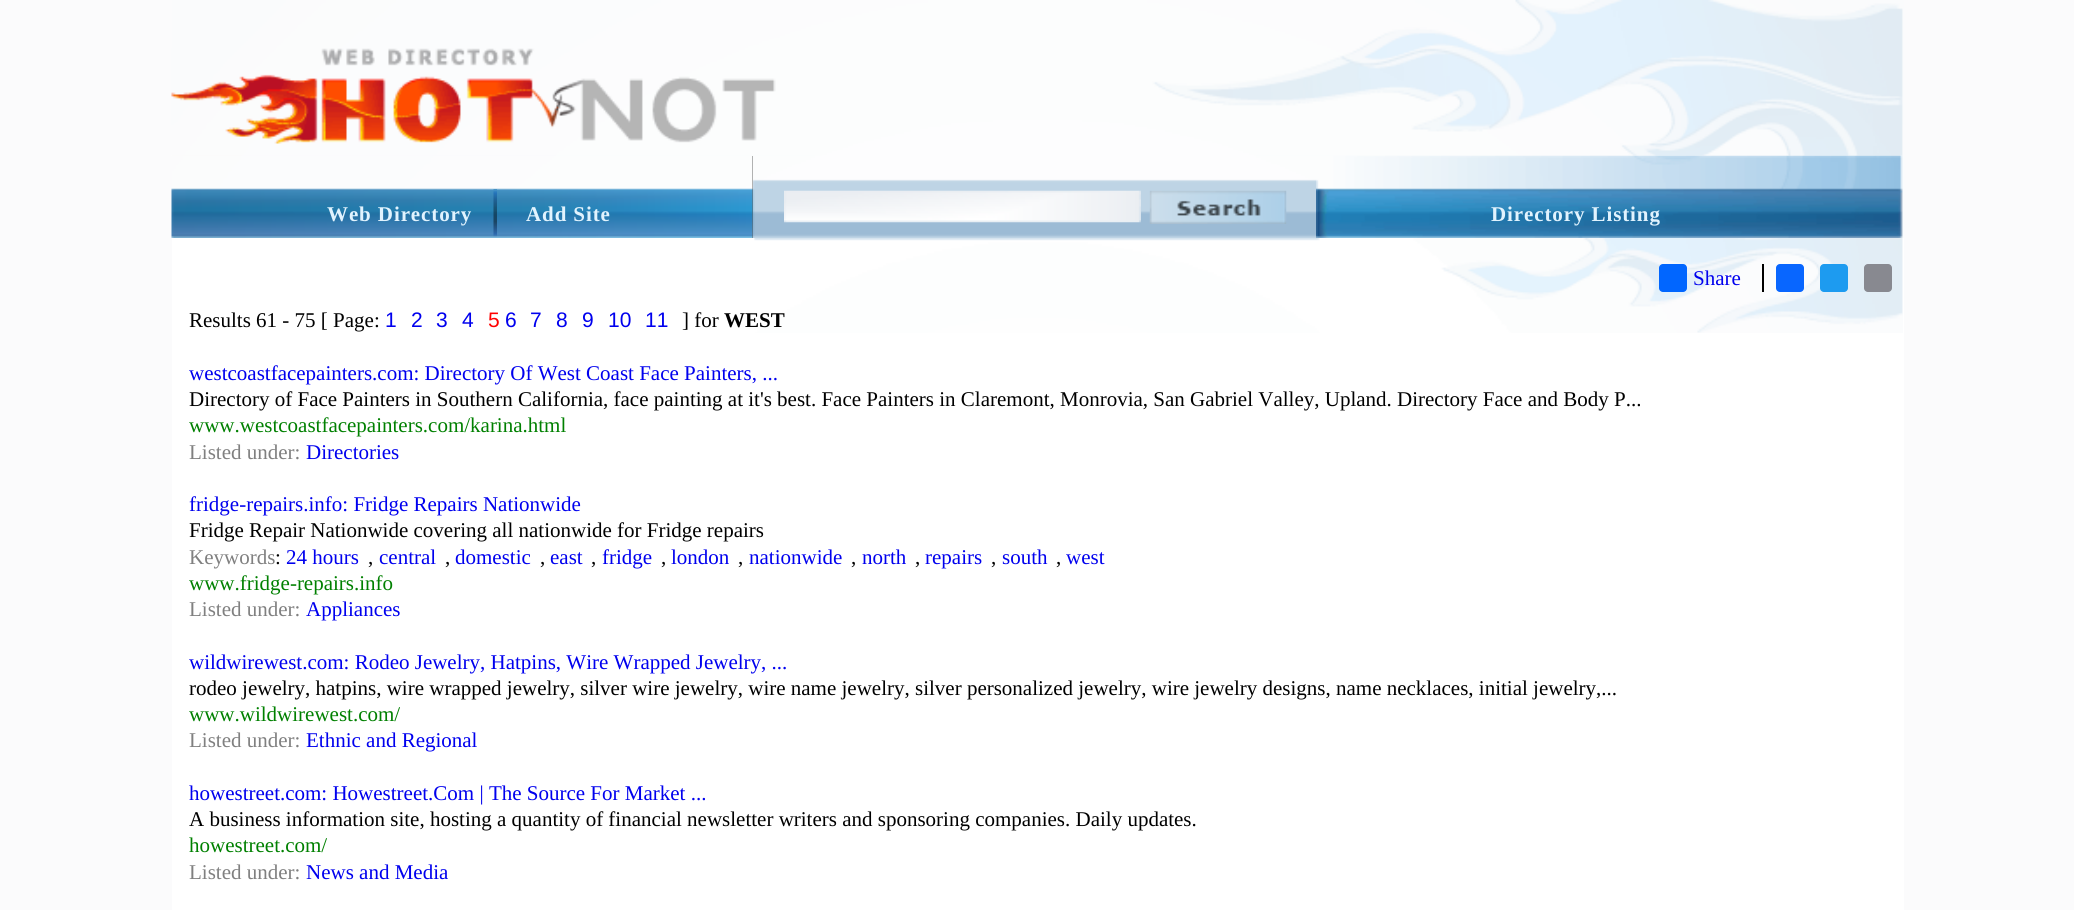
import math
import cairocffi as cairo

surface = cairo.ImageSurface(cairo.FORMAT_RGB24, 2074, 910)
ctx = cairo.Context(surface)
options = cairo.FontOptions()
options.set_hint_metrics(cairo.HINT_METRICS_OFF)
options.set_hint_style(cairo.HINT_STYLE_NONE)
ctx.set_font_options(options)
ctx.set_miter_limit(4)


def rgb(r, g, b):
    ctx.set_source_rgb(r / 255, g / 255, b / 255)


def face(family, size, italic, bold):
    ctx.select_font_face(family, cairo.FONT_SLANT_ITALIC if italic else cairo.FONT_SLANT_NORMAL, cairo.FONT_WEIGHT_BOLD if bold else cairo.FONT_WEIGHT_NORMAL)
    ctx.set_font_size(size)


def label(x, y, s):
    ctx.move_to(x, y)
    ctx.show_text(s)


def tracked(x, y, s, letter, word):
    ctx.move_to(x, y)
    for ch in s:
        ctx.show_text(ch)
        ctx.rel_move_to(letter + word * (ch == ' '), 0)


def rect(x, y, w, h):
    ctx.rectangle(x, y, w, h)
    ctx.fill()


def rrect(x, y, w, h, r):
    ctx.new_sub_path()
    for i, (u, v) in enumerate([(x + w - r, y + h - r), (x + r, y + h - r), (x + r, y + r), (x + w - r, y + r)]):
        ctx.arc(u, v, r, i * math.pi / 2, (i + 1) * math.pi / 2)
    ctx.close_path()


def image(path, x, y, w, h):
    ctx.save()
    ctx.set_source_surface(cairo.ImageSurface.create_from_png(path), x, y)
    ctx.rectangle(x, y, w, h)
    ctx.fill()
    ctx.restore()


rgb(251, 251, 252)
ctx.paint()
image('image0.png', 172, 0, 1732, 156)
image('image4.png', 752, 155, 564, 83)
rgb(102, 102, 102)
rect(752, 156, 1, 82)
image('image2.png', 171, 155, 582, 83)
image('image1.png', 171, 48, 639, 108)
face('Liberation Serif', 21, 0, 1)
rgb(225, 243, 254)
tracked(327, 221, 'Web Directory', 0.9, 0)
image('image3.png', 493, 189, 4, 48)
tracked(526, 221, 'Add Site', 0.9, 0)
image('image5.png', 784, 190, 357, 33)
image('image6.png', 1149, 190, 138, 34)
image('image7.png', 1316, 155, 588, 83)
tracked(1491, 221, 'Directory Listing', 0.9, 0)
rgb(255, 255, 255)
rect(172, 238, 1732, 672)
image('image8.png', 754, 238, 1149, 95)
rgb(1, 102, 255)
rrect(1659, 264, 28, 28, 4)
ctx.fill()
face('Liberation Serif', 21, 0, 0)
rgb(0, 0, 238)
label(1693, 285, 'Share')
rgb(0, 0, 0)
rect(1762, 264, 2, 28)
rgb(8, 102, 255)
rrect(1776, 264, 28, 28, 4)
ctx.fill()
rgb(29, 155, 240)
rrect(1820, 264, 28, 28, 4)
ctx.fill()
rgb(136, 137, 144)
rrect(1864, 264, 28, 28, 4)
ctx.fill()
rgb(0, 0, 0)
label(189, 327, 'Results 61 - 75 [ Page:')
face('Liberation Sans', 21, 0, 0)
rgb(0, 0, 238)
label(385, 327, '1')
label(411, 327, '2')
label(436, 327, '3')
label(462, 327, '4')
rgb(255, 0, 0)
label(488, 327, '5')
rgb(0, 0, 238)
label(505, 327, '6')
label(530, 327, '7')
label(556, 327, '8')
label(582, 327, '9')
label(608, 327, '10')
label(645, 327, '11')
face('Liberation Serif', 21, 0, 0)
rgb(0, 0, 0)
label(682, 327, '] for')
face('Liberation Serif', 21, 0, 1)
label(724, 327, 'WEST')
face('Liberation Serif', 21, 0, 0)
rgb(0, 0, 238)
label(189, 380, 'westcoastfacepainters.com: Directory Of West Coast Face Painters, ...')
rgb(0, 0, 0)
label(189, 406, 'Directory of Face Painters in Southern California, face painting at it\'s best. Face Painters in Claremont, Monrovia, San Gabriel Valley, Upland. Directory Face and Body P...')
rgb(0, 128, 0)
label(189, 432, 'www.westcoastfacepainters.com/karina.html')
rgb(128, 128, 128)
label(189, 459, 'Listed under:')
rgb(0, 0, 238)
label(306, 459, 'Directories')
label(189, 511, 'fridge-repairs.info: Fridge Repairs Nationwide')
rgb(0, 0, 0)
label(189, 537, 'Fridge Repair Nationwide covering all nationwide for Fridge repairs')
rgb(128, 128, 128)
label(189, 564, 'Keywords')
rgb(0, 0, 0)
label(275, 564, ':')
rgb(0, 0, 238)
label(286, 564, '24 hours')
rgb(0, 0, 0)
label(368, 564, ',')
rgb(0, 0, 238)
label(379, 564, 'central')
rgb(0, 0, 0)
label(445, 564, ',')
rgb(0, 0, 238)
label(455, 564, 'domestic')
rgb(0, 0, 0)
label(540, 564, ',')
rgb(0, 0, 238)
label(550, 564, 'east')
rgb(0, 0, 0)
label(591, 564, ',')
rgb(0, 0, 238)
label(602, 564, 'fridge')
rgb(0, 0, 0)
label(661, 564, ',')
rgb(0, 0, 238)
label(671, 564, 'london')
rgb(0, 0, 0)
label(738, 564, ',')
rgb(0, 0, 238)
label(749, 564, 'nationwide')
rgb(0, 0, 0)
label(851, 564, ',')
rgb(0, 0, 238)
label(862, 564, 'north')
rgb(0, 0, 0)
label(915, 564, ',')
rgb(0, 0, 238)
label(925, 564, 'repairs')
rgb(0, 0, 0)
label(991, 564, ',')
rgb(0, 0, 238)
label(1002, 564, 'south')
rgb(0, 0, 0)
label(1056, 564, ',')
rgb(0, 0, 238)
label(1066, 564, 'west')
rgb(0, 128, 0)
label(189, 590, 'www.fridge-repairs.info')
rgb(128, 128, 128)
label(189, 616, 'Listed under:')
rgb(0, 0, 238)
label(306, 616, 'Appliances')
label(189, 669, 'wildwirewest.com: Rodeo Jewelry, Hatpins, Wire Wrapped Jewelry, ...')
rgb(0, 0, 0)
label(189, 695, 'rodeo jewelry, hatpins, wire wrapped jewelry, silver wire jewelry, wire name jewelry, silver personalized jewelry, wire jewelry designs, name necklaces, initial jewelry,...')
rgb(0, 128, 0)
label(189, 721, 'www.wildwirewest.com/')
rgb(128, 128, 128)
label(189, 747, 'Listed under:')
rgb(0, 0, 238)
label(306, 747, 'Ethnic and Regional')
label(189, 800, 'howestreet.com: Howestreet.Com | The Source For Market ...')
rgb(0, 0, 0)
label(189, 826, 'A business information site, hosting a quantity of financial newsletter writers and sponsoring companies. Daily updates.')
rgb(0, 128, 0)
label(189, 852, 'howestreet.com/')
rgb(128, 128, 128)
label(189, 879, 'Listed under:')
rgb(0, 0, 238)
label(306, 879, 'News and Media')
surface.write_to_png('render.png')
